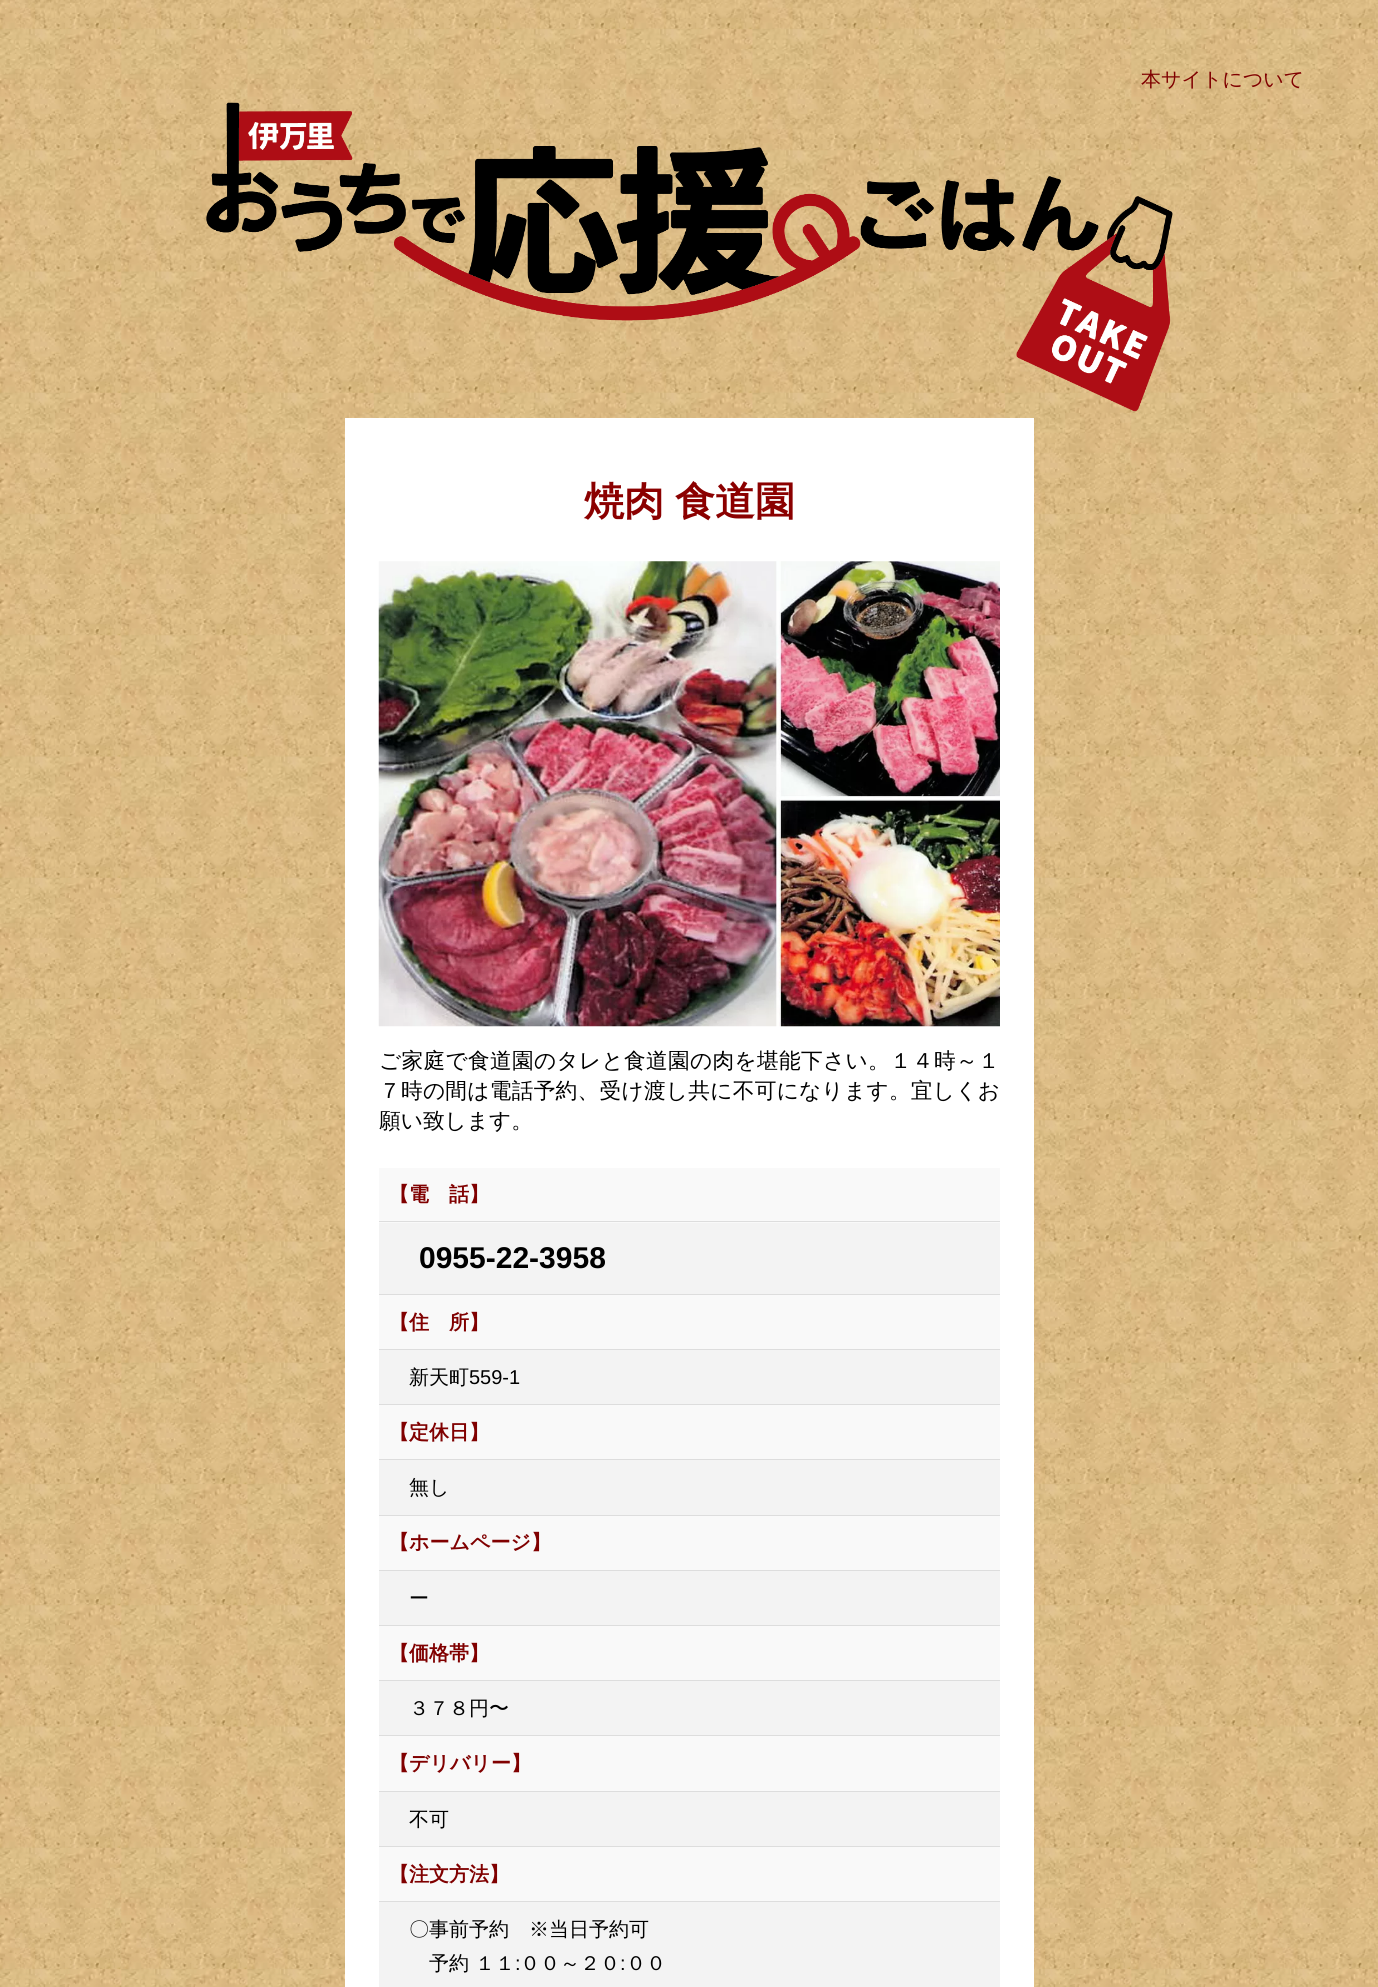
import math
import cairocffi as cairo

surface = cairo.ImageSurface(cairo.FORMAT_RGB24, 1378, 1987)
ctx = cairo.Context(surface)
options = cairo.FontOptions()
options.set_hint_metrics(cairo.HINT_METRICS_OFF)
options.set_hint_style(cairo.HINT_STYLE_NONE)
ctx.set_font_options(options)
ctx.set_miter_limit(4)


def rgb(r, g, b):
    ctx.set_source_rgb(r / 255, g / 255, b / 255)


def face(family, size, italic, bold):
    ctx.select_font_face(family, cairo.FONT_SLANT_ITALIC if italic else cairo.FONT_SLANT_NORMAL, cairo.FONT_WEIGHT_BOLD if bold else cairo.FONT_WEIGHT_NORMAL)
    ctx.set_font_size(size)


def label(x, y, s):
    ctx.move_to(x, y)
    ctx.show_text(s)


def tracked(x, y, s, letter, word):
    ctx.move_to(x, y)
    for ch in s:
        ctx.show_text(ch)
        ctx.rel_move_to(letter + word * (ch == ' '), 0)


def rect(x, y, w, h):
    ctx.rectangle(x, y, w, h)
    ctx.fill()


def image(path, x, y, w, h):
    ctx.save()
    ctx.set_source_surface(cairo.ImageSurface.create_from_png(path), x, y)
    ctx.rectangle(x, y, w, h)
    ctx.fill()
    ctx.restore()


rgb(255, 255, 255)
ctx.paint()
image('image0.png', 0, 0, 1378, 1987)
face('WenQuanYi Zen Hei Medium', 20, 0, 0)
rgb(128, 0, 0)
label(1141, 86, '本サイトについて')
image('image1.png', 206, 102, 967, 310)
rgb(255, 255, 255)
rect(345, 418, 689, 1569)
face('WenQuanYi Zen Hei', 40, 0, 1)
rgb(139, 0, 0)
tracked(584, 515, '焼肉 食道園', 0, -1)
image('image2.png', 378, 561, 622, 466)
face('WenQuanYi Zen Hei Medium', 21.7, 0, 0)
rgb(0, 0, 0)
tracked(379, 1068, 'ご家庭で食道園のタレと食道園の肉を堪能下さい。１４時～１', 0.3, 0)
tracked(379, 1098, '７時の間は電話予約、受け渡し共に不可になります。宜しくお', 0.25, 0)
label(379, 1128, '願い致します。')
rgb(249, 249, 249)
rect(379, 1168, 621, 55)
face('WenQuanYi Zen Hei', 20, 0, 1)
rgb(128, 0, 0)
label(389, 1201, '【電　話】')
rgb(243, 243, 243)
rect(379, 1223, 621, 71)
rgb(221, 221, 221)
rect(379, 1221, 621, 1)
face('Liberation Sans', 30, 0, 1)
rgb(0, 0, 0)
label(419, 1268, '0955-22-3958')
rgb(249, 249, 249)
rect(379, 1295, 621, 54)
rgb(221, 221, 221)
rect(379, 1294, 621, 1)
face('WenQuanYi Zen Hei', 20, 0, 1)
rgb(128, 0, 0)
label(389, 1329, '【住　所】')
rgb(243, 243, 243)
rect(379, 1350, 621, 54)
rgb(221, 221, 221)
rect(379, 1349, 621, 1)
face('WenQuanYi Zen Hei Medium', 20, 0, 0)
rgb(0, 0, 0)
label(409, 1384, '新天町')
face('Liberation Sans', 20, 0, 0)
label(469, 1384, '559-1')
rgb(249, 249, 249)
rect(379, 1405, 621, 54)
rgb(221, 221, 221)
rect(379, 1404, 621, 1)
face('WenQuanYi Zen Hei', 20, 0, 1)
rgb(128, 0, 0)
label(389, 1439, '【定休日】')
rgb(243, 243, 243)
rect(379, 1460, 621, 55)
rgb(221, 221, 221)
rect(379, 1459, 621, 1)
face('WenQuanYi Zen Hei Medium', 20, 0, 0)
rgb(0, 0, 0)
label(409, 1494, '無し')
rgb(249, 249, 249)
rect(379, 1516, 621, 54)
rgb(221, 221, 221)
rect(379, 1515, 621, 1)
face('WenQuanYi Zen Hei', 20, 0, 1)
rgb(128, 0, 0)
label(389, 1549, '【ホームページ】')
rgb(243, 243, 243)
rect(379, 1571, 621, 54)
rgb(221, 221, 221)
rect(379, 1570, 621, 1)
face('WenQuanYi Zen Hei Medium', 20, 0, 0)
rgb(0, 0, 0)
label(409, 1605, 'ー')
rgb(249, 249, 249)
rect(379, 1626, 621, 54)
rgb(221, 221, 221)
rect(379, 1625, 621, 1)
face('WenQuanYi Zen Hei', 20, 0, 1)
rgb(128, 0, 0)
label(389, 1660, '【価格帯】')
rgb(243, 243, 243)
rect(379, 1681, 621, 54)
rgb(221, 221, 221)
rect(379, 1680, 621, 1)
face('WenQuanYi Zen Hei Medium', 20, 0, 0)
rgb(0, 0, 0)
label(409, 1715, '３７８円〜')
rgb(249, 249, 249)
rect(379, 1736, 621, 55)
rgb(221, 221, 221)
rect(379, 1735, 621, 1)
face('WenQuanYi Zen Hei', 20, 0, 1)
rgb(128, 0, 0)
label(389, 1770, '【デリバリー】')
rgb(243, 243, 243)
rect(379, 1792, 621, 54)
rgb(221, 221, 221)
rect(379, 1791, 621, 1)
face('WenQuanYi Zen Hei Medium', 20, 0, 0)
rgb(0, 0, 0)
label(409, 1826, '不可')
rgb(249, 249, 249)
rect(379, 1847, 621, 54)
rgb(221, 221, 221)
rect(379, 1846, 621, 1)
face('WenQuanYi Zen Hei', 20, 0, 1)
rgb(128, 0, 0)
label(389, 1881, '【注文方法】')
rgb(243, 243, 243)
rect(379, 1902, 621, 85)
rgb(221, 221, 221)
rect(379, 1901, 621, 1)
face('WenQuanYi Zen Hei Medium', 20, 0, 0)
rgb(0, 0, 0)
label(409, 1936, '〇事前予約　※当日予約可')
label(429, 1970, '予約 １１')
face('Liberation Sans', 20, 0, 0)
label(515, 1970, ':')
face('WenQuanYi Zen Hei Medium', 20, 0, 0)
label(520, 1970, '００～２０')
face('Liberation Sans', 20, 0, 0)
label(620, 1970, ':')
face('WenQuanYi Zen Hei Medium', 20, 0, 0)
label(626, 1970, '００')
surface.write_to_png('render.png')
